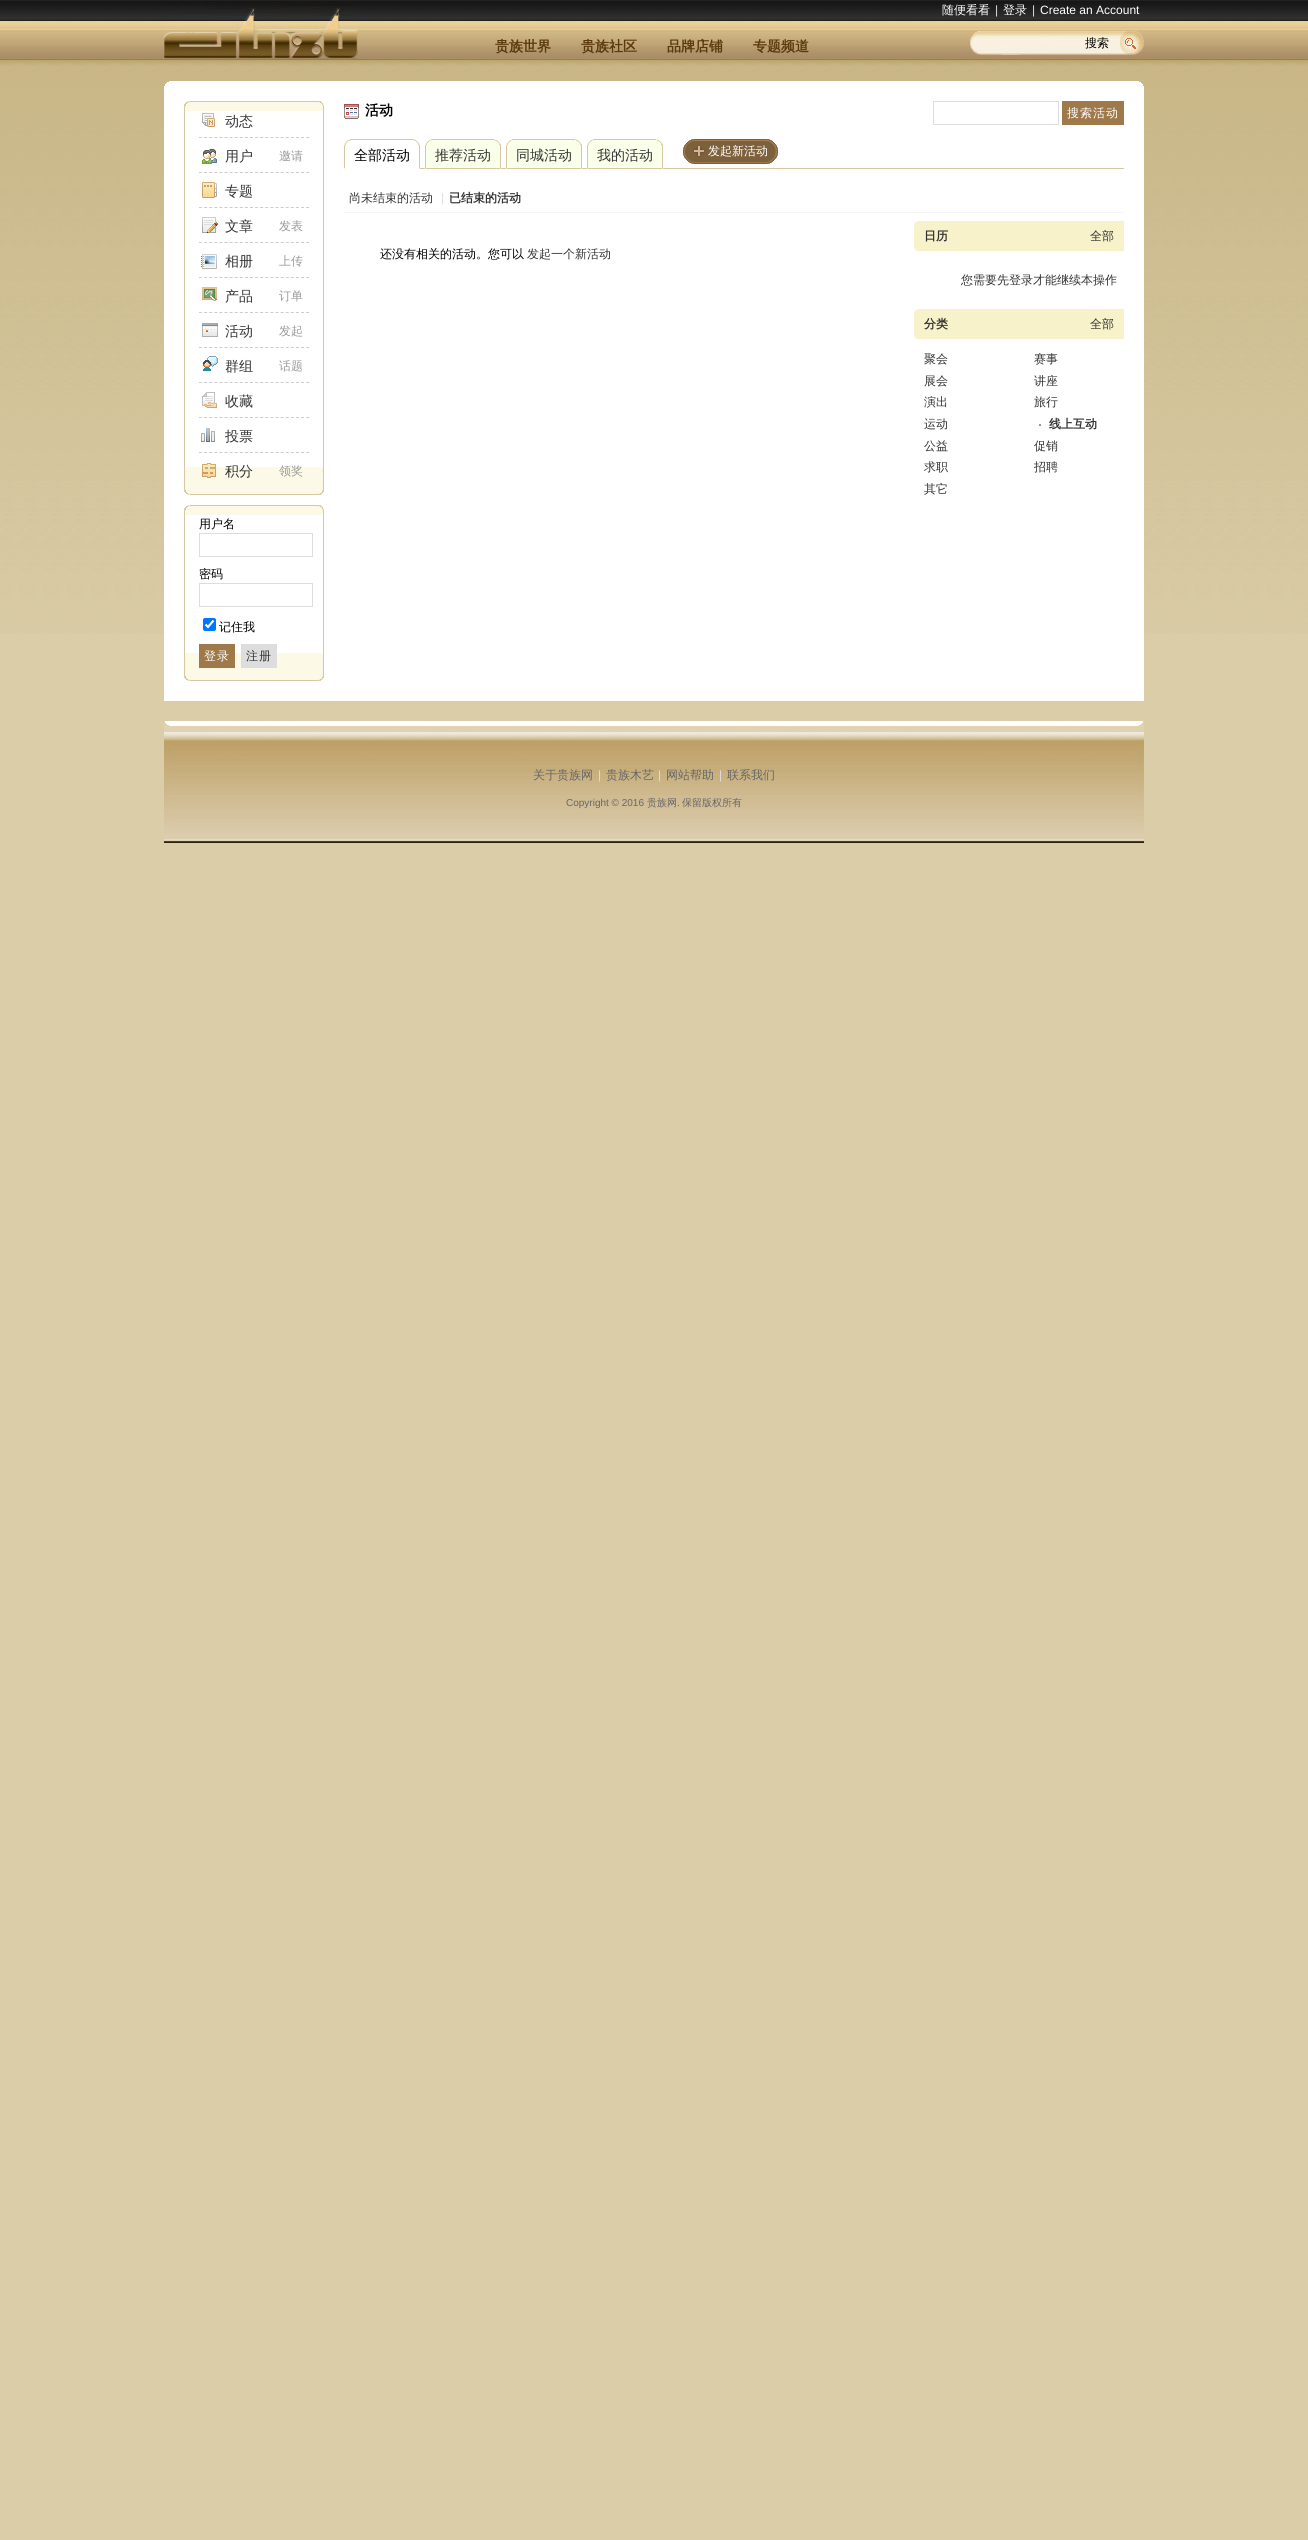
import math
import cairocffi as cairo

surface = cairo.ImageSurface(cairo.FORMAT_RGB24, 1308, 2540)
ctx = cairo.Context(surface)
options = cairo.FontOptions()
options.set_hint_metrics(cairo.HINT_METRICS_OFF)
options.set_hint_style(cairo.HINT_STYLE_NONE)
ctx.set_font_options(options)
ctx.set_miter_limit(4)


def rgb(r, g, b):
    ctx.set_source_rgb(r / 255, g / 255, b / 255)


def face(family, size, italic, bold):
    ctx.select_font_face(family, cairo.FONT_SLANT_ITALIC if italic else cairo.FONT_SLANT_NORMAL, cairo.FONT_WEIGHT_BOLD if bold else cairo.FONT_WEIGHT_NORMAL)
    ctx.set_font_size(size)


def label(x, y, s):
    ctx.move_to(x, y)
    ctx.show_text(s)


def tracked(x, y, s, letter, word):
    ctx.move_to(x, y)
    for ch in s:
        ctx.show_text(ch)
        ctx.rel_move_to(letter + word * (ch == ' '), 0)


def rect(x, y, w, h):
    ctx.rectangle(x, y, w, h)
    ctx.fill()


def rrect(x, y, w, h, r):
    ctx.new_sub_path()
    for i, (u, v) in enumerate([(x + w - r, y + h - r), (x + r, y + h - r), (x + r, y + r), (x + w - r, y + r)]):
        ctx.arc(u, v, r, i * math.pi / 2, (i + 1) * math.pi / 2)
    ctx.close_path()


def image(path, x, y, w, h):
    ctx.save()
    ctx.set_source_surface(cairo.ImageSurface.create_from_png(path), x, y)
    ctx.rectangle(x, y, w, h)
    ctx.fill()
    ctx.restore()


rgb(219, 205, 167)
ctx.paint()
image('image0.png', 0, 0, 1308, 634)
image('image1.png', 164, 3, 194, 56)
face('WenQuanYi Zen Hei Medium', 12, 0, 0)
rgb(255, 255, 255)
label(942, 14, '随便看看')
face('Liberation Sans', 12, 0, 0)
rgb(221, 221, 221)
label(995, 14, '|')
face('WenQuanYi Zen Hei Medium', 12, 0, 0)
rgb(255, 255, 255)
label(1003, 14, '登录')
face('Liberation Sans', 12, 0, 0)
rgb(221, 221, 221)
label(1032, 14, '|')
rgb(255, 255, 255)
label(1040, 14, 'Create an Account')
face('WenQuanYi Zen Hei', 14, 0, 1)
rgb(90, 57, 12)
label(495, 51, '贵族世界')
label(581, 51, '贵族社区')
label(667, 51, '品牌店铺')
label(753, 51, '专题频道')
image('image2.png', 970, 31, 150, 24)
image('image3.png', 1120, 31, 24, 24)
face('WenQuanYi Zen Hei Medium', 12, 0, 0)
rgb(0, 0, 0)
label(1085, 47, '搜索')
rgb(255, 255, 255)
rect(164, 86, 980, 615)
image('image4.png', 164, 81, 980, 5)
image('image5.png', 184, 111, 140, 384)
image('image6.png', 184, 101, 140, 10)
ctx.new_path()
ctx.move_to(199, 137.5)
ctx.line_to(309, 137.5)
rgb(204, 204, 204)
ctx.set_line_width(1)
ctx.set_dash([3, 2.1])
ctx.stroke()
image('image7.png', 202, 113, 13, 14)
face('WenQuanYi Zen Hei Medium', 14, 0, 0)
rgb(51, 51, 51)
label(225, 126, '动态')
ctx.new_path()
ctx.move_to(199, 172.5)
ctx.line_to(309, 172.5)
rgb(204, 204, 204)
ctx.stroke()
image('image8.png', 202, 149, 15, 15)
rgb(51, 51, 51)
label(225, 161, '用户')
face('WenQuanYi Zen Hei Medium', 12, 0, 0)
rgb(153, 153, 153)
label(279, 160, '邀请')
ctx.new_path()
ctx.move_to(199, 207.5)
ctx.line_to(309, 207.5)
rgb(204, 204, 204)
ctx.stroke()
image('image9.png', 202, 182, 15, 16)
face('WenQuanYi Zen Hei Medium', 14, 0, 0)
rgb(51, 51, 51)
label(225, 196, '专题')
ctx.new_path()
ctx.move_to(199, 242.5)
ctx.line_to(309, 242.5)
rgb(204, 204, 204)
ctx.stroke()
image('image10.png', 202, 217, 16, 16)
rgb(51, 51, 51)
label(225, 231, '文章')
face('WenQuanYi Zen Hei Medium', 12, 0, 0)
rgb(153, 153, 153)
label(279, 230, '发表')
ctx.new_path()
ctx.move_to(199, 277.5)
ctx.line_to(309, 277.5)
rgb(204, 204, 204)
ctx.stroke()
image('image11.png', 201, 254, 16, 15)
face('WenQuanYi Zen Hei Medium', 14, 0, 0)
rgb(51, 51, 51)
label(225, 266, '相册')
face('WenQuanYi Zen Hei Medium', 12, 0, 0)
rgb(153, 153, 153)
label(279, 265, '上传')
ctx.new_path()
ctx.move_to(199, 312.5)
ctx.line_to(309, 312.5)
rgb(204, 204, 204)
ctx.stroke()
image('image12.png', 202, 287, 15, 14)
face('WenQuanYi Zen Hei Medium', 14, 0, 0)
rgb(51, 51, 51)
label(225, 301, '产品')
face('WenQuanYi Zen Hei Medium', 12, 0, 0)
rgb(153, 153, 153)
label(279, 300, '订单')
ctx.new_path()
ctx.move_to(199, 347.5)
ctx.line_to(309, 347.5)
rgb(204, 204, 204)
ctx.stroke()
image('image13.png', 202, 323, 16, 14)
face('WenQuanYi Zen Hei Medium', 14, 0, 0)
rgb(51, 51, 51)
label(225, 336, '活动')
face('WenQuanYi Zen Hei Medium', 12, 0, 0)
rgb(153, 153, 153)
label(279, 335, '发起')
ctx.new_path()
ctx.move_to(199, 382.5)
ctx.line_to(309, 382.5)
rgb(204, 204, 204)
ctx.stroke()
image('image14.png', 202, 356, 16, 16)
face('WenQuanYi Zen Hei Medium', 14, 0, 0)
rgb(51, 51, 51)
label(225, 371, '群组')
face('WenQuanYi Zen Hei Medium', 12, 0, 0)
rgb(153, 153, 153)
label(279, 370, '话题')
ctx.new_path()
ctx.move_to(199, 417.5)
ctx.line_to(309, 417.5)
rgb(204, 204, 204)
ctx.stroke()
image('image15.png', 202, 392, 15, 16)
face('WenQuanYi Zen Hei Medium', 14, 0, 0)
rgb(51, 51, 51)
label(225, 406, '收藏')
ctx.new_path()
ctx.move_to(199, 452.5)
ctx.line_to(309, 452.5)
rgb(204, 204, 204)
ctx.stroke()
image('image16.png', 201, 428, 14, 14)
rgb(51, 51, 51)
label(225, 441, '投票')
image('image17.png', 202, 463, 14, 15)
label(225, 476, '积分')
face('WenQuanYi Zen Hei Medium', 12, 0, 0)
rgb(153, 153, 153)
label(279, 475, '领奖')
image('image18.png', 184, 515, 140, 166)
image('image6.png', 184, 505, 140, 10)
rgb(0, 0, 0)
label(199, 528, '用户名')
ctx.rectangle(199.5, 533.5, 113, 23)
rgb(221, 221, 221)
ctx.set_dash([])
ctx.stroke()
rgb(0, 0, 0)
label(199, 578, '密码')
ctx.rectangle(199.5, 583.5, 113, 23)
rgb(221, 221, 221)
ctx.stroke()
rgb(0, 117, 255)
rrect(203, 618, 13, 13, 2)
ctx.fill()
ctx.new_path()
ctx.move_to(205.5, 624.5)
ctx.line_to(208, 627)
ctx.line_to(213.5, 620.5)
rgb(255, 255, 255)
ctx.set_line_width(2.1)
ctx.stroke()
rgb(0, 0, 0)
label(219, 631, '记住我')
rgb(159, 121, 74)
rect(199, 644, 36, 24)
rgb(255, 255, 255)
tracked(204, 660, '登录', 1, 0)
rgb(221, 221, 221)
rect(241, 644, 36, 24)
rgb(51, 51, 51)
tracked(246, 660, '注册', 1, 0)
image('image19.png', 344, 104, 15, 15)
face('WenQuanYi Zen Hei', 14, 0, 1)
rgb(0, 0, 0)
label(365, 115, '活动')
ctx.rectangle(933.5, 101.5, 125, 23)
rgb(221, 221, 221)
ctx.set_line_width(1)
ctx.stroke()
rgb(159, 121, 74)
rect(1062, 101, 62, 24)
face('WenQuanYi Zen Hei Medium', 12, 0, 0)
rgb(255, 255, 255)
tracked(1067, 117, '搜索活动', 1, 0)
rgb(214, 200, 160)
rect(420, 168, 704, 1)
image('image20.png', 344, 139, 69, 30)
image('image21.png', 413, 139, 7, 30)
face('WenQuanYi Zen Hei Medium', 14, 0, 0)
rgb(0, 0, 0)
label(354, 160, '全部活动')
image('image22.png', 425, 139, 69, 30)
image('image23.png', 494, 139, 7, 30)
rgb(51, 51, 51)
label(435, 160, '推荐活动')
image('image22.png', 506, 139, 69, 30)
image('image23.png', 575, 139, 7, 30)
label(516, 160, '同城活动')
image('image22.png', 587, 139, 69, 30)
image('image23.png', 656, 139, 7, 30)
label(597, 160, '我的活动')
image('image24.png', 683, 139, 84, 25)
image('image25.png', 767, 139, 11, 25)
face('WenQuanYi Zen Hei Medium', 12, 0, 0)
rgb(255, 255, 255)
label(708, 155, '发起新活动')
rgb(245, 245, 245)
rect(344, 212, 780, 1)
rgb(51, 51, 51)
label(349, 202, '尚未结束的活动')
face('Liberation Sans', 12, 0, 0)
rgb(221, 221, 221)
label(441, 202, '|')
face('WenQuanYi Zen Hei', 12, 0, 1)
rgb(51, 51, 51)
label(449, 202, '已结束的活动')
face('WenQuanYi Zen Hei Medium', 12, 0, 0)
rgb(0, 0, 0)
label(380, 258, '还没有相关的活动。您可以')
rgb(51, 51, 51)
label(527, 258, '发起一个新活动')
image('image26.png', 914, 221, 210, 30)
face('WenQuanYi Zen Hei', 12, 0, 1)
label(924, 240, '日历')
face('WenQuanYi Zen Hei Medium', 12, 0, 0)
label(1090, 240, '全部')
label(961, 284, '您需要先登录才能继续本操作')
image('image26.png', 914, 309, 210, 30)
face('WenQuanYi Zen Hei', 12, 0, 1)
label(924, 328, '分类')
face('WenQuanYi Zen Hei Medium', 12, 0, 0)
label(1090, 328, '全部')
label(924, 363, '聚会')
label(1034, 363, '赛事')
label(924, 385, '展会')
label(1034, 385, '讲座')
label(924, 406, '演出')
label(1034, 406, '旅行')
label(924, 428, '运动')
rgb(153, 153, 153)
rect(1039, 424, 2, 2)
face('WenQuanYi Zen Hei', 12, 0, 1)
rgb(51, 51, 51)
label(1049, 428, '线上互动')
face('WenQuanYi Zen Hei Medium', 12, 0, 0)
label(924, 450, '公益')
label(1034, 450, '促销')
label(924, 471, '求职')
label(1034, 471, '招聘')
label(924, 493, '其它')
image('image27.png', 164, 721, 980, 122)
rgb(102, 102, 102)
label(533, 779, '关于贵族网')
face('Liberation Sans', 12, 0, 0)
rgb(221, 221, 221)
label(598, 779, '|')
face('WenQuanYi Zen Hei Medium', 12, 0, 0)
rgb(102, 102, 102)
label(606, 779, '贵族木艺')
face('Liberation Sans', 12, 0, 0)
rgb(221, 221, 221)
label(658, 779, '|')
face('WenQuanYi Zen Hei Medium', 12, 0, 0)
rgb(102, 102, 102)
label(666, 779, '网站帮助')
face('Liberation Sans', 12, 0, 0)
rgb(221, 221, 221)
label(719, 779, '|')
face('WenQuanYi Zen Hei Medium', 12, 0, 0)
rgb(102, 102, 102)
label(727, 779, '联系我们')
face('Liberation Sans', 10, 0, 0)
label(566, 806, 'Copyright © 2016')
face('WenQuanYi Zen Hei Medium', 10, 0, 0)
label(647, 806, '贵族网')
face('Liberation Sans', 10, 0, 0)
label(677, 806, '.')
face('WenQuanYi Zen Hei Medium', 10, 0, 0)
label(682, 806, '保留版权所有')
surface.write_to_png('render.png')
